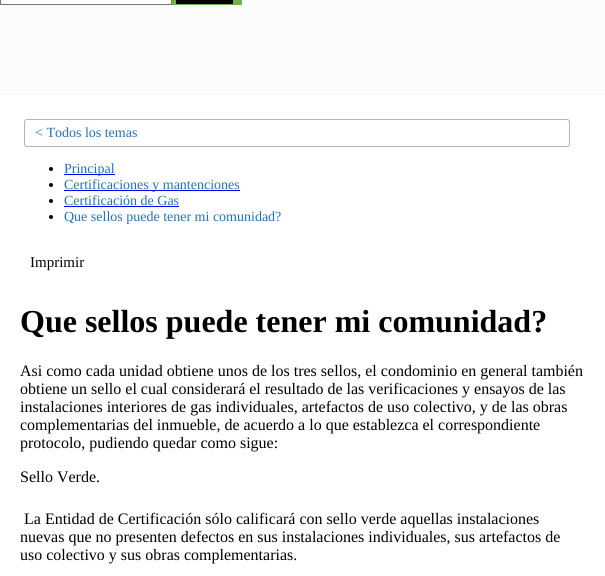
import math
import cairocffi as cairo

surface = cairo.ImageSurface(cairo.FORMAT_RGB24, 605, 576)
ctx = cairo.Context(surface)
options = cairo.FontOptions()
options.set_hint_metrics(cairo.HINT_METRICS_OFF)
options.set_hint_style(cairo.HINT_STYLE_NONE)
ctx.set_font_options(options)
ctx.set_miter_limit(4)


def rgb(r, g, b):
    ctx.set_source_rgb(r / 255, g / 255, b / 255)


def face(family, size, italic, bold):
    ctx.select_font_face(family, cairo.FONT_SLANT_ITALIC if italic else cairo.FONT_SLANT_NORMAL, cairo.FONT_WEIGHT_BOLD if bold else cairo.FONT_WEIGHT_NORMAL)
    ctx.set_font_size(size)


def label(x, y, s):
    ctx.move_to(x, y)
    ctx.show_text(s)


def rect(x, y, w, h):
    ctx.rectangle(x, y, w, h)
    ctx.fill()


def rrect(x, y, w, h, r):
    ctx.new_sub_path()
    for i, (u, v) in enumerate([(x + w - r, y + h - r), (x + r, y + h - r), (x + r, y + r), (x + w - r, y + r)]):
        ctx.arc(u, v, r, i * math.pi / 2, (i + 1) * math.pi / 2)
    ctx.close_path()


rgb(255, 255, 255)
ctx.paint()
rgb(251, 251, 251)
rect(0, 0, 605, 95)
rgb(111, 178, 76)
rect(0, 0, 242, 5)
rgb(255, 255, 255)
rrect(0.5, -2.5, 171, 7, 1.5)
ctx.fill_preserve()
rgb(118, 118, 118)
ctx.set_line_width(1)
ctx.stroke()
rgb(0, 0, 0)
rect(176, 0, 57, 4)
rrect(24.5, 119.5, 545, 27, 2.5)
rgb(181, 181, 181)
ctx.stroke()
face('Liberation Serif', 14, 0, 0)
rgb(30, 115, 190)
label(35, 137, '< Todos los temas')
rgb(0, 0, 0)
ctx.new_path()
ctx.arc(51, 169, 2, 0, 2 * math.pi)
ctx.fill()
rgb(0, 0, 238)
rect(64, 174, 51, 1)
rgb(30, 115, 190)
label(64, 173, 'Principal')
rgb(0, 0, 0)
ctx.new_path()
ctx.arc(51, 185, 2, 0, 2 * math.pi)
ctx.fill()
rgb(0, 0, 238)
rect(64, 190, 176, 1)
rgb(30, 115, 190)
label(64, 189, 'Certificaciones y mantenciones')
rgb(0, 0, 0)
ctx.new_path()
ctx.arc(51, 201, 2, 0, 2 * math.pi)
ctx.fill()
rgb(30, 115, 190)
label(64, 205, 'Certificación de Gas')
rgb(0, 0, 238)
rect(64, 206, 115, 1)
rgb(0, 0, 0)
ctx.new_path()
ctx.arc(51, 217, 2, 0, 2 * math.pi)
ctx.fill()
rgb(30, 115, 190)
label(64, 221, 'Que sellos puede tener mi comunidad?')
face('Liberation Serif', 15, 0, 0)
rgb(0, 0, 0)
label(30, 267, 'Imprimir')
face('Liberation Serif', 32, 0, 1)
label(20, 332, 'Que sellos puede tener mi comunidad?')
face('Liberation Serif', 16, 0, 0)
label(20, 376, 'Asi como cada unidad obtiene unos de los tres sellos, el condominio en general también')
label(20, 394, 'obtiene un sello el cual considerará el resultado de las verificaciones y ensayos de las')
label(20, 412, 'instalaciones interiores de gas individuales, artefactos de uso colectivo, y de las obras')
label(20, 430, 'complementarias del inmueble, de acuerdo a lo que establezca el correspondiente')
label(20, 448, 'protocolo, pudiendo quedar como sigue:')
label(20, 482, 'Sello Verde.')
label(24, 524, 'La Entidad de Certificación sólo calificará con sello verde aquellas instalaciones')
label(20, 542, 'nuevas que no presenten defectos en sus instalaciones individuales, sus artefactos de')
label(20, 560, 'uso colectivo y sus obras complementarias.')
surface.write_to_png('render.png')
